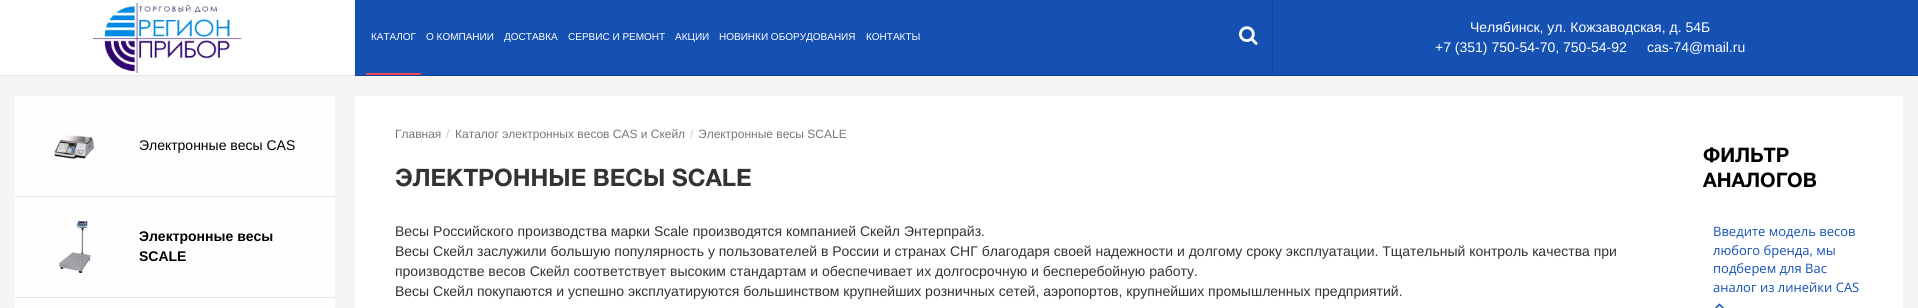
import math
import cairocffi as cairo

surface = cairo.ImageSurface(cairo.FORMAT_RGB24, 1918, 308)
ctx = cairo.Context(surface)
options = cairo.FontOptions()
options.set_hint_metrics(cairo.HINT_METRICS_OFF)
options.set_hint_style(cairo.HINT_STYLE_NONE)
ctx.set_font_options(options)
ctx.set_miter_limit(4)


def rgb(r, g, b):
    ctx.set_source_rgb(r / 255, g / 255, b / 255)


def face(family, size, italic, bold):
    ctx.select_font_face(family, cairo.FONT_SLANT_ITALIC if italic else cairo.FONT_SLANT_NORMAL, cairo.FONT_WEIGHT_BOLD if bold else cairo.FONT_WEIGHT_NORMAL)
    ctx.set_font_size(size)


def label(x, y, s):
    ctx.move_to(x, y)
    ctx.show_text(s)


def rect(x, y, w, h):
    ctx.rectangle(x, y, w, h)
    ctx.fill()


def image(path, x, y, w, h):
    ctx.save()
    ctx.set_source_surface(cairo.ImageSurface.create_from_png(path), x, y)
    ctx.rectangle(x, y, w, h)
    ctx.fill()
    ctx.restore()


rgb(245, 245, 245)
ctx.paint()
rgb(255, 255, 255)
rect(0, 0, 355, 75)
rgb(230, 230, 230)
rect(0, 75, 355, 1)
image('image0.png', 92, 3, 150, 70)
rgb(21, 81, 179)
rect(355, 0, 1563, 76)
rgb(14, 63, 144)
ctx.new_path()
ctx.move_to(1918, 76)
ctx.line_to(355, 76)
ctx.line_to(356, 75)
ctx.line_to(1917, 75)
ctx.close_path()
ctx.fill()
rgb(248, 69, 75)
rect(366, 73, 55, 2)
face('Liberation Sans', 10, 0, 0)
rgb(255, 255, 255)
label(371, 40, 'КАТАЛОГ')
label(426, 40, 'О КОМПАНИИ')
label(504, 40, 'ДОСТАВКА')
label(568, 40, 'СЕРВИС И РЕМОНТ')
label(675, 40, 'АКЦИИ')
label(719, 40, 'НОВИНКИ ОБОРУДОВАНИЯ')
label(866, 40, 'КОНТАКТЫ')
rgb(20, 67, 149)
rect(1272, 1, 1, 73)
image('image1.png', 1239, 26, 19, 19)
face('Liberation Sans', 14, 0, 0)
rgb(255, 255, 255)
label(1470, 32, 'Челябинск, ул. Кожзаводская, д. 54Б')
label(1435, 52, '+7 (351) 750-54-70, 750-54-92')
label(1647, 52, 'cas-74@mail.ru')
rgb(254, 254, 254)
rect(15, 96, 320, 212)
rgb(230, 230, 230)
rect(15, 196, 320, 1)
image('image2.png', 54, 135, 40, 24)
rgb(0, 0, 0)
label(139, 150, 'Электронные весы CAS')
image('image3.png', 57, 221, 36, 52)
face('Liberation Sans', 14, 0, 1)
label(139, 241, 'Электронные весы')
label(139, 261, 'SCALE')
rgb(230, 230, 230)
rect(15, 297, 320, 1)
rgb(255, 255, 255)
rect(355, 96, 1548, 212)
face('Liberation Sans', 12, 0, 0)
rgb(119, 119, 119)
label(395, 138, 'Главная')
rgb(204, 204, 204)
label(446, 138, '/')
rgb(119, 119, 119)
label(455, 138, 'Каталог электронных весов CAS и Скейл')
rgb(204, 204, 204)
label(690, 138, '/')
rgb(119, 119, 119)
label(698, 138, 'Электронные весы SCALE')
face('Helvetica Neue', 24, 0, 1)
rgb(51, 51, 51)
label(395, 186, 'ЭЛЕКТРОННЫЕ ВЕСЫ SCALE')
face('Liberation Sans', 14, 0, 0)
label(395, 236, 'Весы Российского производства марки Scale производятся компанией Скейл Энтерпрайз.')
label(395, 256, 'Весы Скейл заслужили большую популярность у пользователей в России и странах СНГ благодаря своей надежности и долгому сроку эксплуатации. Тщательный контроль качества при')
label(395, 276, 'производстве весов Скейл соответствует высоким стандартам и обеспечивает их долгосрочную и бесперебойную работу.')
label(395, 296, 'Весы Скейл покупаются и успешно эксплуатируются большинством крупнейших розничных сетей, аэропортов, крупнейших промышленных предприятий.')
face('Helvetica Neue', 20, 0, 1)
rgb(0, 0, 0)
label(1703, 162, 'ФИЛЬТР')
label(1703, 187, 'АНАЛОГОВ')
face('Open Sans', 13, 0, 0)
rgb(21, 81, 179)
label(1713, 236, 'Введите модель весов')
label(1713, 255, 'любого бренда, мы')
label(1713, 273, 'подберем для Вас')
label(1713, 292, 'аналог из линейки CAS')
image('image4.png', 1715, 303, 9, 5)
surface.write_to_png('render.png')
